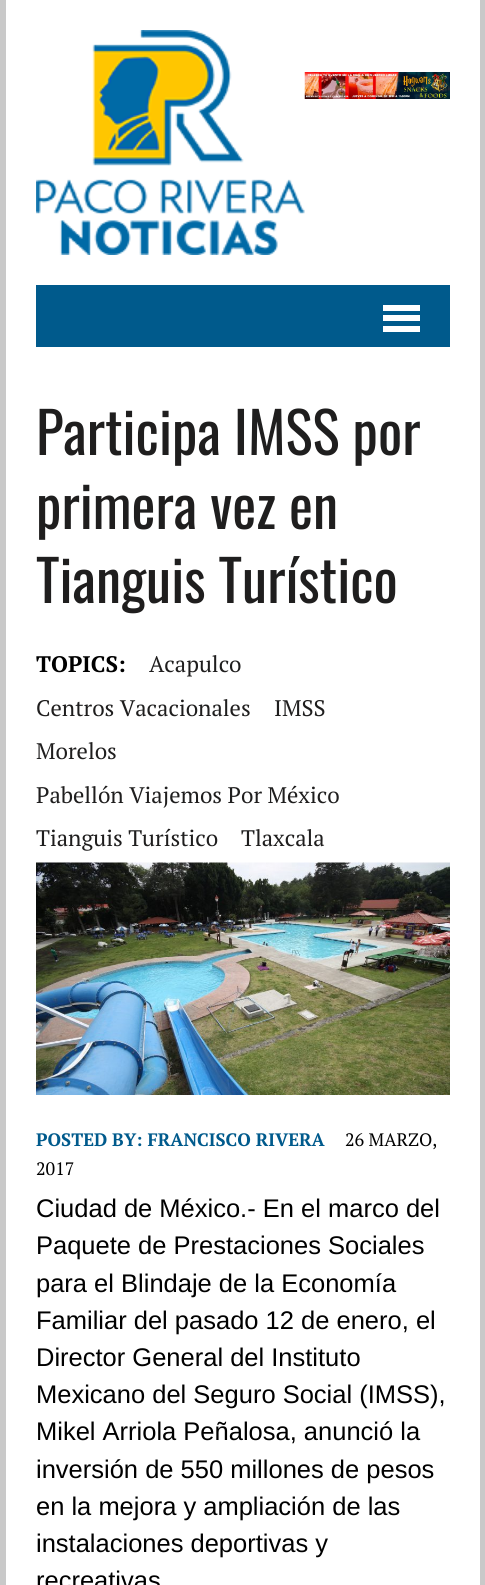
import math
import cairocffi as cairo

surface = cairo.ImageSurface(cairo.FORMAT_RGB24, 485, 1585)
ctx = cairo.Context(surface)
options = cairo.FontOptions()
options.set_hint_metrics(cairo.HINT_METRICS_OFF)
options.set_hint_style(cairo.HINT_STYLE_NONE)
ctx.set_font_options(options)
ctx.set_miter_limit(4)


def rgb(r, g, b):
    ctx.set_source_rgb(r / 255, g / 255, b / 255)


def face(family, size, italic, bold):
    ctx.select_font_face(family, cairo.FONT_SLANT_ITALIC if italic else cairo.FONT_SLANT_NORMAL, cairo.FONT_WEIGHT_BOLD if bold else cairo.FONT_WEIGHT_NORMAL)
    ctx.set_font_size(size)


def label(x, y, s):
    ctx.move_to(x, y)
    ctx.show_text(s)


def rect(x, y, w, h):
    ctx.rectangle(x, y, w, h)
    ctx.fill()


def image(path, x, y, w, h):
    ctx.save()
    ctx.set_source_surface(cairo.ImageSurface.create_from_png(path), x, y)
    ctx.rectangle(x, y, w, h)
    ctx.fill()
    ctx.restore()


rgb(201, 201, 201)
ctx.paint()
rgb(255, 255, 255)
rect(6, 0, 474, 1585)
image('image0.png', 36, 30, 269, 225)
image('image1.png', 304, 72, 146, 27)
rgb(0, 90, 140)
rect(36, 285, 414, 62)
rgb(255, 255, 255)
rect(383, 305, 37, 6)
rect(383, 315, 37, 6)
rect(383, 326, 37, 6)
face('Oswald', 57, 0, 0)
rgb(31, 30, 30)
label(36, 455, 'Participa IMSS por')
label(36, 529, 'primera vez en')
label(36, 603, 'Tianguis Turístico')
face('PT Serif', 22.5, 0, 1)
rgb(0, 0, 0)
label(36, 672, 'TOPICS:')
face('PT Serif', 22.5, 0, 0)
rgb(31, 30, 30)
label(149, 672, 'Acapulco')
label(36, 716, 'Centros Vacacionales')
label(274, 716, 'IMSS')
label(36, 759, 'Morelos')
label(36, 803, 'Pabellón Viajemos Por México')
label(36, 846, 'Tianguis Turístico')
label(241, 846, 'Tlaxcala')
image('image2.png', 36, 862, 414, 233)
face('PT Serif', 18, 0, 1)
rgb(0, 90, 140)
label(36, 1146, 'POSTED BY: FRANCISCO RIVERA')
face('PT Serif', 18, 0, 0)
rgb(0, 0, 0)
label(345, 1146, '26 MARZO,')
label(36, 1175, '2017')
face('Liberation Sans', 25.5, 0, 0)
label(36, 1217, 'Ciudad de México.- En el marco del')
label(36, 1254, 'Paquete de Prestaciones Sociales')
label(36, 1292, 'para el Blindaje de la Economía')
label(36, 1329, 'Familiar del pasado 12 de enero, el')
label(36, 1366, 'Director General del Instituto')
label(36, 1403, 'Mexicano del Seguro Social (IMSS),')
label(36, 1440, 'Mikel Arriola Peñalosa, anunció la')
label(36, 1478, 'inversión de 550 millones de pesos')
label(36, 1515, 'en la mejora y ampliación de las')
label(36, 1552, 'instalaciones deportivas y')
label(36, 1589, 'recreativas')
surface.write_to_png('render.png')
